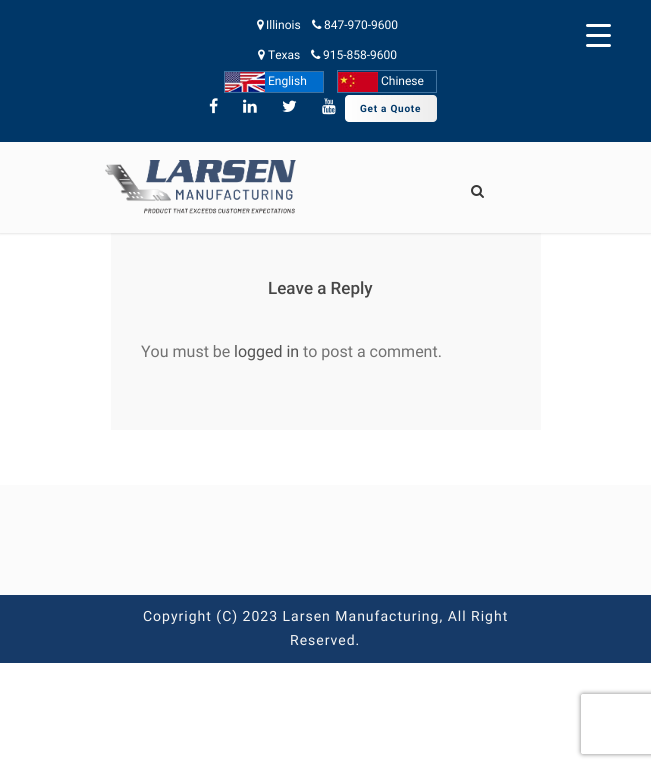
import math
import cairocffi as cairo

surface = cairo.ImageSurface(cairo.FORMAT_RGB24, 651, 768)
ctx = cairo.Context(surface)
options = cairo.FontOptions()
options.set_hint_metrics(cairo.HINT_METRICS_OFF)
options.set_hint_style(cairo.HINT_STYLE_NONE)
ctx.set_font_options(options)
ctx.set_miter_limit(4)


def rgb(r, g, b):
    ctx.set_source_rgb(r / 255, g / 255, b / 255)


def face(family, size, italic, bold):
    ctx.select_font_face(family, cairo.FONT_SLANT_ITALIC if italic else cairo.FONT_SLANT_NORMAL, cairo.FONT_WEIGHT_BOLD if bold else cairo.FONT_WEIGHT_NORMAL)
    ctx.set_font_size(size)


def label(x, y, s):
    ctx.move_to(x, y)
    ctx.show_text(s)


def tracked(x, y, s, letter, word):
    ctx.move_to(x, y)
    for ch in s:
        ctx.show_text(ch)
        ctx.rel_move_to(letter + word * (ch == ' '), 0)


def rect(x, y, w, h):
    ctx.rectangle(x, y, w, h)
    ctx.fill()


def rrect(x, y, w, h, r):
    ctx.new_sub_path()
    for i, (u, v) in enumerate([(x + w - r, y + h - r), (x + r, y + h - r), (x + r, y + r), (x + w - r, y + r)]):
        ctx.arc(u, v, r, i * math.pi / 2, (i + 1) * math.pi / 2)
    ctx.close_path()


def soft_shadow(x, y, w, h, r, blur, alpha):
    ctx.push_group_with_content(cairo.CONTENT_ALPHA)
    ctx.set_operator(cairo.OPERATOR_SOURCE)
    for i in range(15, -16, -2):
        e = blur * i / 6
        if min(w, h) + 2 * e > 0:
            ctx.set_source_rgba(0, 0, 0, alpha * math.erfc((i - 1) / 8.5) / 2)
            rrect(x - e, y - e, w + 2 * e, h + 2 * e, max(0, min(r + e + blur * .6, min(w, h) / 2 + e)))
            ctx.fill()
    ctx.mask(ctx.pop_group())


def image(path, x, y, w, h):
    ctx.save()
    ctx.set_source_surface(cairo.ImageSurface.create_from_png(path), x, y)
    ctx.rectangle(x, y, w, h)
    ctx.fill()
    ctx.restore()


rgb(255, 255, 255)
ctx.paint()
rgb(0, 55, 104)
rect(0, 0, 651, 142)
image('image0.png', 257, 19, 7, 11)
face('Roboto', 12, 0, 0)
rgb(255, 255, 255)
label(266, 29, 'Illinois')
image('image1.png', 312, 19, 10, 10)
label(324, 29, '847-970-9600')
image('image0.png', 258, 49, 7, 11)
label(268, 59, 'Texas')
image('image1.png', 311, 49, 10, 10)
label(323, 59, '915-858-9600')
rgb(0, 108, 203)
rect(265, 72, 58, 20)
ctx.rectangle(224.5, 71.5, 99, 21)
rgb(64, 115, 160)
ctx.set_line_width(1)
ctx.stroke()
image('image2.png', 225, 72, 40, 20)
rgb(255, 255, 255)
label(268, 85, 'English')
ctx.rectangle(337.5, 70.5, 99, 22)
rgb(64, 115, 160)
ctx.stroke()
image('image3.png', 338, 72, 40, 20)
rgb(255, 255, 255)
label(381, 85, 'Chinese')
image('image4.png', 209, 98, 9, 16)
image('image5.png', 243, 99, 14, 14)
image('image6.png', 282, 100, 15, 12)
image('image7.png', 322, 98, 14, 17)
gradient = cairo.LinearGradient(345, 109, 437, 109)
gradient.add_color_stop_rgba(0, 1, 1, 1, 1)
gradient.add_color_stop_rgba(0.47, 0.965, 0.965, 0.965, 1)
gradient.add_color_stop_rgba(1, 0.929, 0.929, 0.929, 1)
ctx.set_source(gradient)
rrect(345, 95, 92, 27, 4)
ctx.fill()
face('Roboto', 10, 0, 1)
rgb(0, 55, 104)
tracked(360, 112, 'Get a Quote', 0.75, 0)
rgb(249, 249, 249)
rect(111, 233, 430, 197)
rgb(0, 0, 0)
soft_shadow(0, 143, 651, 91, 0, 1, 0.1)
rgb(251, 251, 251)
rect(0, 142, 651, 91)
image('image8.png', 105, 160, 191, 54)
image('image9.png', 471, 185, 13, 13)
rgb(255, 255, 255)
rrect(586, 34, 25, 3, 1.5)
ctx.fill()
rrect(586, 24, 25, 3, 1.5)
ctx.fill()
rrect(586, 44, 25, 3, 1.5)
ctx.fill()
face('Roboto Medium', 17, 0, 0)
rgb(70, 70, 70)
label(268, 294, 'Leave a Reply')
face('Roboto', 16, 0, 0)
rgb(114, 114, 114)
label(141, 357, 'You must be')
rgb(84, 84, 84)
label(234, 357, 'logged in')
rgb(114, 114, 114)
label(303, 357, 'to post a comment.')
rgb(251, 251, 251)
rect(0, 485, 651, 110)
rgb(22, 58, 104)
rect(0, 595, 651, 68)
face('Roboto', 14, 0, 0)
rgb(244, 244, 244)
tracked(143, 621, 'Copyright (C) 2023 Larsen Manufacturing, All Right', 1, 0)
tracked(290, 645, 'Reserved.', 1, 0)
ctx.save()
ctx.set_fill_rule(cairo.FILL_RULE_EVEN_ODD)
ctx.new_path()
ctx.move_to(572, 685)
ctx.line_to(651, 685)
ctx.line_to(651, 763)
ctx.line_to(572, 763)
ctx.close_path()
ctx.move_to(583, 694)
ctx.line_to(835, 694)
ctx.curve_to(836, 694, 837, 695, 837, 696)
ctx.line_to(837, 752)
ctx.curve_to(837, 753, 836, 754, 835, 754)
ctx.line_to(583, 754)
ctx.curve_to(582, 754, 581, 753, 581, 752)
ctx.line_to(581, 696)
ctx.curve_to(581, 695, 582, 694, 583, 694)
ctx.close_path()
ctx.clip()
rgb(128, 128, 128)
soft_shadow(581, 694, 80, 60, 2, 2.5, 1)
ctx.restore()
surface.write_to_png('render.png')
